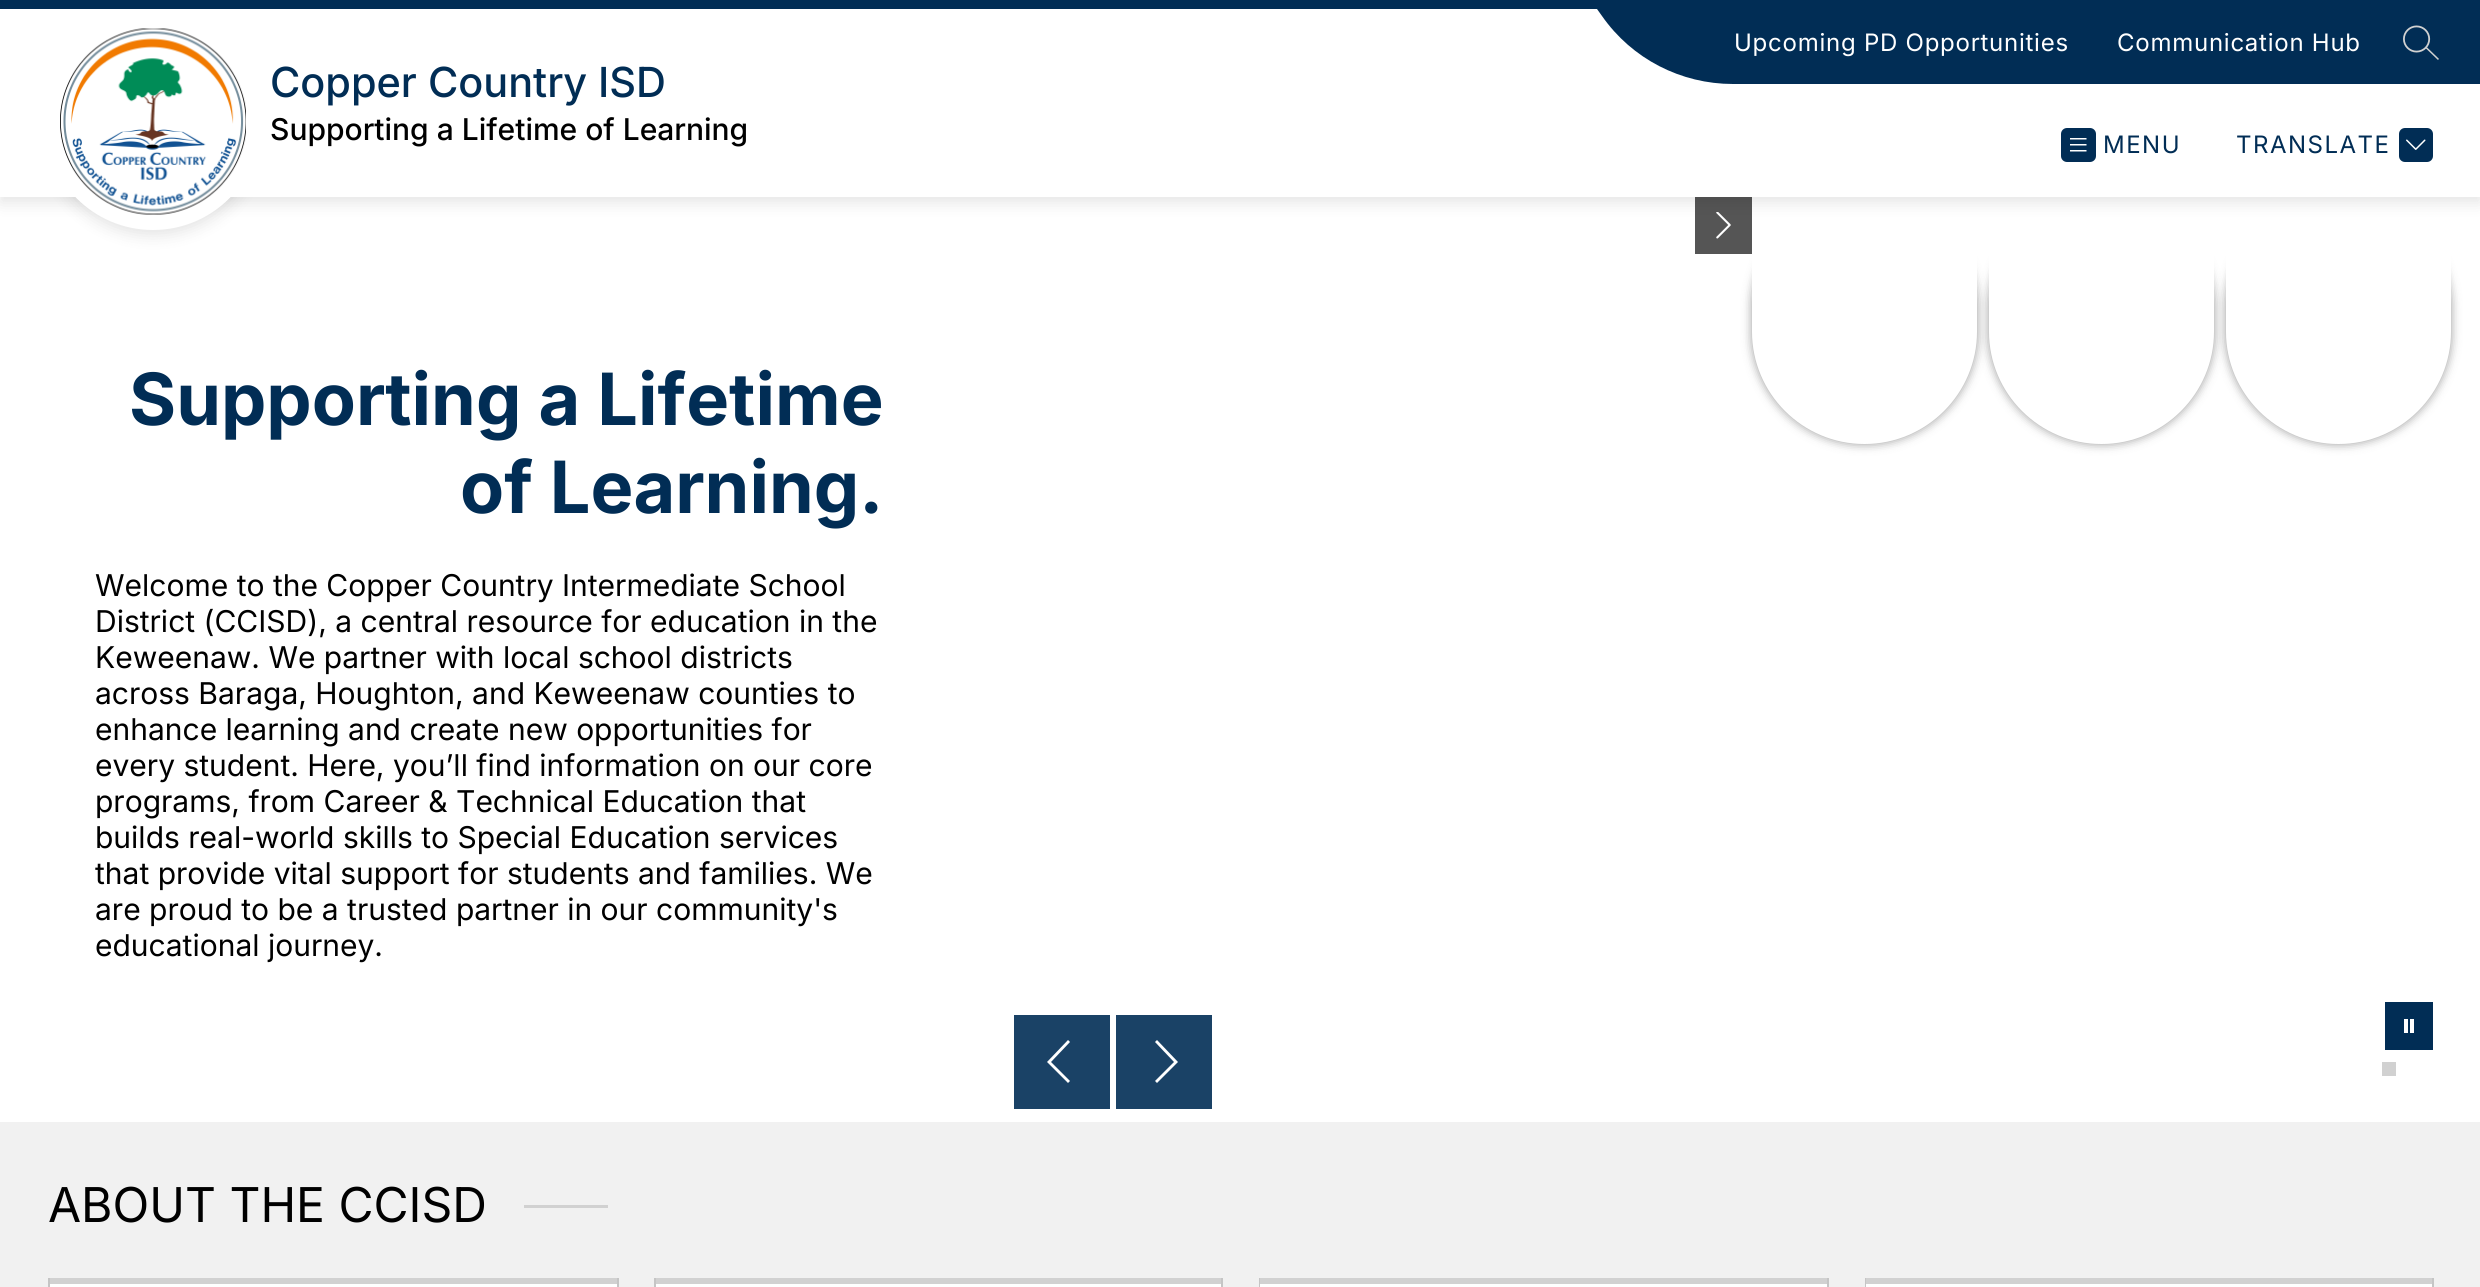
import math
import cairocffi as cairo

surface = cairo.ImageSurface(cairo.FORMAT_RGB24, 2480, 1287)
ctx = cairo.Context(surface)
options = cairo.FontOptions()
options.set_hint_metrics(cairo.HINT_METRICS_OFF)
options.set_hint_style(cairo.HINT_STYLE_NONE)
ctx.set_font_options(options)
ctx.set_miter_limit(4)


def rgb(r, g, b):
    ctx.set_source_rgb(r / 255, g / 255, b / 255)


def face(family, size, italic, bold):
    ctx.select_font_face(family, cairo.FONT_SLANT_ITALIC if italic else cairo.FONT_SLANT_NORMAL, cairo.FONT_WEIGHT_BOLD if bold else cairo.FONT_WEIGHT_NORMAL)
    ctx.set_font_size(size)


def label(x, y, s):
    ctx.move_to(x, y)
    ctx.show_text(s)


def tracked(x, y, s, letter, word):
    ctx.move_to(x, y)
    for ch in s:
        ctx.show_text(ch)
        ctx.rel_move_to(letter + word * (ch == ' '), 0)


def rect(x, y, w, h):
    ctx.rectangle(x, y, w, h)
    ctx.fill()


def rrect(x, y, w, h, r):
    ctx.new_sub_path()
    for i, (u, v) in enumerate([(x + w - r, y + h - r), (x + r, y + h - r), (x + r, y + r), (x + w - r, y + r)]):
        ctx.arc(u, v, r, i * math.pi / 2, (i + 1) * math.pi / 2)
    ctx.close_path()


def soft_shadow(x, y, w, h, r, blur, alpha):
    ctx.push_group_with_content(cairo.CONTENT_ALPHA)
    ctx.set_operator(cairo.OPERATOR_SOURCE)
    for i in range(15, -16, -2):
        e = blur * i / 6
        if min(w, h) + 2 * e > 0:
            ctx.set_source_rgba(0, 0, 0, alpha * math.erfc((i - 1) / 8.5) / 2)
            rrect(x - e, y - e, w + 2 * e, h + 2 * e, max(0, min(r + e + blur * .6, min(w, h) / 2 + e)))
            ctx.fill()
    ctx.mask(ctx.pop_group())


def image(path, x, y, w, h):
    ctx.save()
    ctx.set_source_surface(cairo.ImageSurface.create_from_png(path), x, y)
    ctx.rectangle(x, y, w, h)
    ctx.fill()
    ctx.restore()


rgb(255, 255, 255)
ctx.paint()
rgb(0, 0, 0)
soft_shadow(1752, 197, 225, 247, 112.5, 5, 0.4)
rgb(85, 85, 85)
rect(1695, 197, 57, 57)
image('image4.png', 1716, 212, 15, 27)
rgb(255, 255, 255)
ctx.new_path()
ctx.move_to(1752, 197)
ctx.line_to(1977, 197)
ctx.line_to(1977, 331.5)
ctx.curve_to(1977, 393.5, 1926.5, 444, 1864.5, 444)
ctx.curve_to(1802.5, 444, 1752, 393.5, 1752, 331.5)
ctx.close_path()
ctx.fill()
rgb(0, 0, 0)
soft_shadow(1989, 197, 225, 247, 112.5, 5, 0.4)
rgb(255, 255, 255)
ctx.new_path()
ctx.move_to(1989, 197)
ctx.line_to(2214, 197)
ctx.line_to(2214, 331.5)
ctx.curve_to(2214, 393.5, 2163.5, 444, 2101.5, 444)
ctx.curve_to(2039.5, 444, 1989, 393.5, 1989, 331.5)
ctx.close_path()
ctx.fill()
rgb(0, 0, 0)
soft_shadow(2226, 197, 225, 247, 112.5, 5, 0.4)
rgb(255, 255, 255)
ctx.new_path()
ctx.move_to(2226, 197)
ctx.line_to(2451, 197)
ctx.line_to(2451, 331.5)
ctx.curve_to(2451, 393.5, 2400.5, 444, 2338.5, 444)
ctx.curve_to(2276.5, 444, 2226, 393.5, 2226, 331.5)
ctx.close_path()
ctx.fill()
rgb(0, 0, 0)
soft_shadow(0, 6, 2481, 197, 0, 7.5, 0.1)
soft_shadow(45, 20, 216, 216, 108, 7.5, 0.1)
rgb(255, 255, 255)
ctx.arc(153, 122, 108, 0, 2 * math.pi)
ctx.fill()
rect(0, 9, 2480, 188)
rgb(1, 45, 85)
rect(0, 0, 1597, 9)
image('image0.png', 60, 28, 186, 187)
face('Inter Medium', 41.4, 0, 0)
label(270, 97, 'Copper Country ISD')
face('Inter Medium', 30, 0, 0)
rgb(0, 0, 0)
label(270, 140, 'Supporting a Lifetime of Learning')
rgb(1, 45, 85)
rect(1737, 0, 743, 84)
ctx.new_path()
ctx.move_to(1733, 84)
ctx.line_to(1737, 84)
ctx.line_to(1737, 0)
ctx.line_to(1593, 0)
ctx.curve_to(1592, 0, 1591, 1, 1592, 2)
ctx.line_to(1602, 16)
ctx.curve_to(1632, 59, 1681, 84, 1733, 84)
ctx.close_path()
ctx.fill()
face('Inter', 24, 0, 0)
rgb(255, 255, 255)
tracked(1734, 51, 'Upcoming PD Opportunities', 0.75, 0)
tracked(2117, 51, 'Communication Hub', 0.75, 0)
image('image1.png', 2403, 25, 36, 35)
image('image2.png', 2061, 128, 35, 34)
rgb(1, 45, 85)
tracked(2103, 153, 'MENU', 1.5, 0)
tracked(2236, 153, 'TRANSLATE', 1.5, 0)
image('image3.png', 2399, 128, 34, 34)
face('Inter', 72, 0, 1)
label(129, 425, 'Supporting a Lifetime')
label(460, 513, 'of Learning.')
face('Inter', 30, 0, 0)
rgb(0, 0, 0)
label(95, 596, 'Welcome to the Copper Country Intermediate School')
label(95, 632, 'District (CCISD), a central resource for education in the')
label(95, 668, 'Keweenaw. We partner with local school districts')
label(95, 704, 'across Baraga, Houghton, and Keweenaw counties to')
label(95, 740, 'enhance learning and create new opportunities for')
label(95, 776, 'every student. Here, you’ll find information on our core')
label(95, 812, 'programs, from Career & Technical Education that')
label(95, 848, 'builds real-world skills to Special Education services')
label(95, 884, 'that provide vital support for students and families. We')
label(95, 920, 'are proud to be a trusted partner in our community\'s')
label(95, 956, 'educational journey.')
rgb(26, 66, 102)
rect(1014, 1015, 96, 94)
rgb(255, 255, 255)
ctx.set_fill_rule(cairo.FILL_RULE_EVEN_ODD)
ctx.new_path()
ctx.move_to(1051, 1062)
ctx.line_to(1070, 1081)
ctx.line_to(1068, 1083)
ctx.line_to(1047, 1062)
ctx.line_to(1068, 1040)
ctx.line_to(1070, 1042)
ctx.close_path()
ctx.fill()
rgb(26, 66, 102)
rect(1116, 1015, 96, 94)
rgb(255, 255, 255)
ctx.new_path()
ctx.move_to(1174, 1062)
ctx.line_to(1155, 1081)
ctx.line_to(1157, 1083)
ctx.line_to(1178, 1062)
ctx.line_to(1157, 1040)
ctx.line_to(1155, 1042)
ctx.close_path()
ctx.fill()
rgb(1, 45, 85)
rect(2385, 1002, 48, 48)
rgb(255, 255, 255)
ctx.new_path()
ctx.move_to(2408, 1019)
ctx.line_to(2404, 1019)
ctx.line_to(2404, 1033)
ctx.line_to(2408, 1033)
ctx.close_path()
ctx.move_to(2414, 1019)
ctx.line_to(2410, 1019)
ctx.line_to(2410, 1033)
ctx.line_to(2414, 1033)
ctx.close_path()
ctx.fill()
rgb(209, 209, 209)
rect(2382, 1062, 14, 14)
rgb(241, 241, 241)
rect(0, 1122, 2480, 165)
face('Inter', 48, 0, 0)
rgb(0, 0, 0)
label(48, 1222, 'ABOUT THE CCISD')
rgb(209, 209, 209)
rect(524, 1205, 84, 3)
rgb(197, 197, 197)
rect(617, 1278, 2, 9)
rect(48, 1278, 2, 9)
rgb(255, 255, 255)
rect(50, 1284, 567, 3)
rgb(209, 209, 209)
rect(50, 1278, 567, 6)
rgb(197, 197, 197)
rect(1221, 1278, 2, 9)
rect(654, 1278, 2, 9)
rgb(255, 255, 255)
rect(656, 1284, 565, 3)
rgb(209, 209, 209)
rect(656, 1278, 565, 6)
rgb(197, 197, 197)
rect(1827, 1278, 2, 9)
rect(1259, 1278, 1, 9)
rgb(255, 255, 255)
rect(1260, 1284, 567, 3)
rgb(209, 209, 209)
rect(1260, 1278, 567, 6)
rgb(197, 197, 197)
rect(2432, 1278, 2, 9)
rect(1865, 1278, 1, 9)
rgb(255, 255, 255)
rect(1866, 1284, 566, 3)
rgb(209, 209, 209)
rect(1866, 1278, 566, 6)
surface.write_to_png('render.png')
